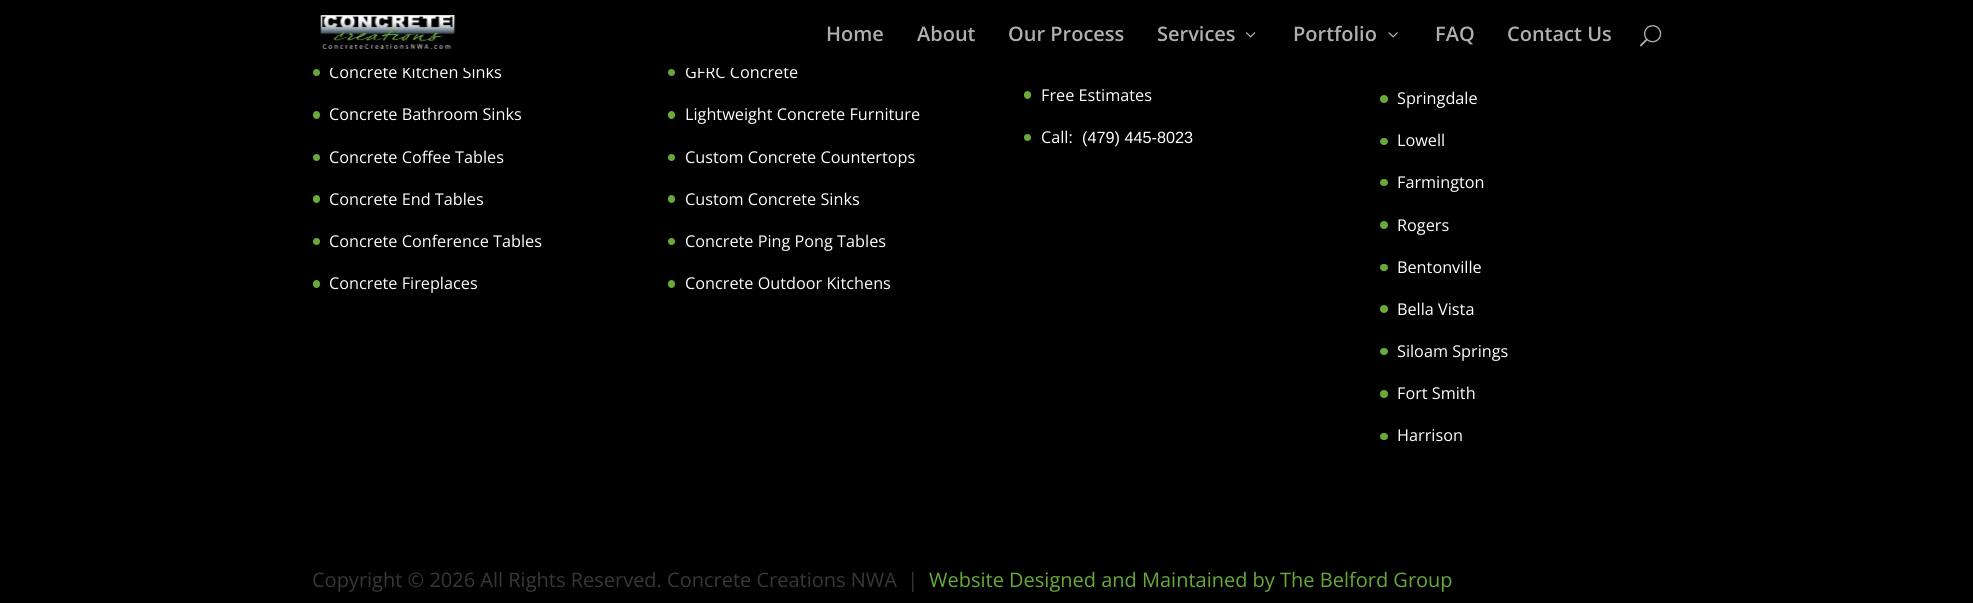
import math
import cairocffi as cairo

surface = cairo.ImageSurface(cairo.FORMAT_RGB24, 1973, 603)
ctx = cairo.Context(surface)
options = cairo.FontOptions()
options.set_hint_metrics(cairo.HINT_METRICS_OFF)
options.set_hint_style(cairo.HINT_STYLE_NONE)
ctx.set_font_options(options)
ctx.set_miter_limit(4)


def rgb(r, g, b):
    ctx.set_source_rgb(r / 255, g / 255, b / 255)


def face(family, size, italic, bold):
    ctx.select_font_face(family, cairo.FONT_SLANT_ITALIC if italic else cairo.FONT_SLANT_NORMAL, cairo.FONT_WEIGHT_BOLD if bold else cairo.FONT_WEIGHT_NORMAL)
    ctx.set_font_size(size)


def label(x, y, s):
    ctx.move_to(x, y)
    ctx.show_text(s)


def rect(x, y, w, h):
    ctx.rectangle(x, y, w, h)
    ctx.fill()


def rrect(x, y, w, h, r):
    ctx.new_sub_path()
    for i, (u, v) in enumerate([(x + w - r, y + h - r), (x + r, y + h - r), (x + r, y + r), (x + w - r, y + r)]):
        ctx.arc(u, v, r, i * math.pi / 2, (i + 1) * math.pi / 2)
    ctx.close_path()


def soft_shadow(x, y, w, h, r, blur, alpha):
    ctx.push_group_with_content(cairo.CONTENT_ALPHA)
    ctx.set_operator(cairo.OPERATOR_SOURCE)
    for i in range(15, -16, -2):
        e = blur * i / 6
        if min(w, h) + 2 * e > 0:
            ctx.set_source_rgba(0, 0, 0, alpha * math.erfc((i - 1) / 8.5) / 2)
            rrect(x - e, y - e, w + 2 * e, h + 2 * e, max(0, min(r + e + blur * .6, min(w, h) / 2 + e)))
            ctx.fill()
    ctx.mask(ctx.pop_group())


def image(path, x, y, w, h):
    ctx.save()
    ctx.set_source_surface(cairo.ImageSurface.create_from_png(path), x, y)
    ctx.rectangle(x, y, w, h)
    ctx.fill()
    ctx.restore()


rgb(0, 0, 0)
ctx.paint()
rgb(103, 169, 59)
ctx.arc(316.5, 72.5, 3.5, 0, 2 * math.pi)
ctx.fill()
ctx.arc(671.5, 72.5, 3.5, 0, 2 * math.pi)
ctx.fill()
rgb(0, 0, 0)
soft_shadow(0, 0, 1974, 68, 0, 4.5, 0.1)
face('Open Sans', 16.25, 0, 0)
rgb(255, 255, 255)
label(329, 78, 'Concrete Kitchen Sinks')
label(685, 78, 'GFRC Concrete')
rgb(0, 0, 0)
rect(331, 65, 456, 3)
image('image0.png', 320, 15, 136, 34)
face('Open Sans SemiBold', 20, 0, 0)
rgb(175, 175, 175)
label(826, 41, 'Home')
label(917, 41, 'About')
label(1008, 41, 'Our Process')
label(1157, 41, 'Services')
image('image1.png', 1246, 32, 10, 6)
label(1293, 41, 'Portfolio')
image('image2.png', 1388, 32, 10, 6)
label(1435, 41, 'FAQ')
label(1507, 41, 'Contact Us')
image('image3.png', 1640, 25, 22, 22)
rgb(103, 169, 59)
rrect(313, 111, 7, 8, 3.5)
ctx.fill()
face('Open Sans', 16.25, 0, 0)
rgb(255, 255, 255)
label(329, 120, 'Concrete Bathroom Sinks')
rgb(103, 169, 59)
ctx.new_path()
ctx.arc(316.5, 157.5, 3.5, 0, 2 * math.pi)
ctx.fill()
rgb(255, 255, 255)
label(329, 163, 'Concrete Coffee Tables')
rgb(103, 169, 59)
rrect(313, 195, 7, 8, 3.5)
ctx.fill()
rgb(255, 255, 255)
label(329, 205, 'Concrete End Tables')
rgb(103, 169, 59)
ctx.new_path()
ctx.arc(316.5, 241.5, 3.5, 0, 2 * math.pi)
ctx.fill()
rgb(255, 255, 255)
label(329, 247, 'Concrete Conference Tables')
rgb(103, 169, 59)
rrect(313, 280, 7, 8, 3.5)
ctx.fill()
rgb(255, 255, 255)
label(329, 289, 'Concrete Fireplaces')
rgb(103, 169, 59)
rrect(668, 111, 7, 8, 3.5)
ctx.fill()
rgb(255, 255, 255)
label(685, 120, 'Lightweight Concrete Furniture')
rgb(103, 169, 59)
ctx.new_path()
ctx.arc(671.5, 157.5, 3.5, 0, 2 * math.pi)
ctx.fill()
rgb(255, 255, 255)
label(685, 163, 'Custom Concrete Countertops')
rgb(103, 169, 59)
rrect(668, 195, 7, 8, 3.5)
ctx.fill()
rgb(255, 255, 255)
label(685, 205, 'Custom Concrete Sinks')
rgb(103, 169, 59)
ctx.new_path()
ctx.arc(671.5, 241.5, 3.5, 0, 2 * math.pi)
ctx.fill()
rgb(255, 255, 255)
label(685, 247, 'Concrete Ping Pong Tables')
rgb(103, 169, 59)
rrect(668, 280, 7, 8, 3.5)
ctx.fill()
rgb(255, 255, 255)
label(685, 289, 'Concrete Outdoor Kitchens')
rgb(103, 169, 59)
rrect(1024, 91, 7, 8, 3.5)
ctx.fill()
rgb(255, 255, 255)
label(1041, 101, 'Free Estimates')
rgb(103, 169, 59)
ctx.new_path()
ctx.arc(1027.5, 137.5, 3.5, 0, 2 * math.pi)
ctx.fill()
rgb(255, 255, 255)
label(1041, 143, 'Call:')
face('Liberation Sans', 16.25, 0, 0)
label(1082, 143, '(479) 445-8023')
rgb(103, 169, 59)
ctx.new_path()
ctx.arc(1384, 99, 4, 0, 2 * math.pi)
ctx.fill()
face('Open Sans', 16.25, 0, 0)
rgb(255, 255, 255)
label(1397, 104, 'Springdale')
rgb(103, 169, 59)
rrect(1380, 138, 8, 7, 3.5)
ctx.fill()
rgb(255, 255, 255)
label(1397, 146, 'Lowell')
rgb(103, 169, 59)
rrect(1380, 179, 8, 7, 3.5)
ctx.fill()
rgb(255, 255, 255)
label(1397, 188, 'Farmington')
rgb(103, 169, 59)
ctx.new_path()
ctx.arc(1384, 225, 4, 0, 2 * math.pi)
ctx.fill()
rgb(255, 255, 255)
label(1397, 231, 'Rogers')
rgb(103, 169, 59)
rrect(1380, 264, 8, 7, 3.5)
ctx.fill()
rgb(255, 255, 255)
label(1397, 273, 'Bentonville')
rgb(103, 169, 59)
ctx.new_path()
ctx.arc(1384, 309, 4, 0, 2 * math.pi)
ctx.fill()
rgb(255, 255, 255)
label(1397, 315, 'Bella Vista')
rgb(103, 169, 59)
rrect(1380, 348, 8, 7, 3.5)
ctx.fill()
rgb(255, 255, 255)
label(1397, 357, 'Siloam Springs')
rgb(103, 169, 59)
ctx.new_path()
ctx.arc(1384, 394, 4, 0, 2 * math.pi)
ctx.fill()
rgb(255, 255, 255)
label(1397, 399, 'Fort Smith')
rgb(103, 169, 59)
rrect(1380, 433, 8, 7, 3.5)
ctx.fill()
rgb(255, 255, 255)
label(1397, 441, 'Harrison')
face('Open Sans', 20, 0, 0)
rgb(55, 55, 55)
label(312, 587, 'Copyright © 2026 All Rights Reserved. Concrete Creations NWA  |')
rgb(103, 169, 59)
label(929, 587, 'Website Designed and Maintained by The Belford Group')
surface.write_to_png('render.png')
